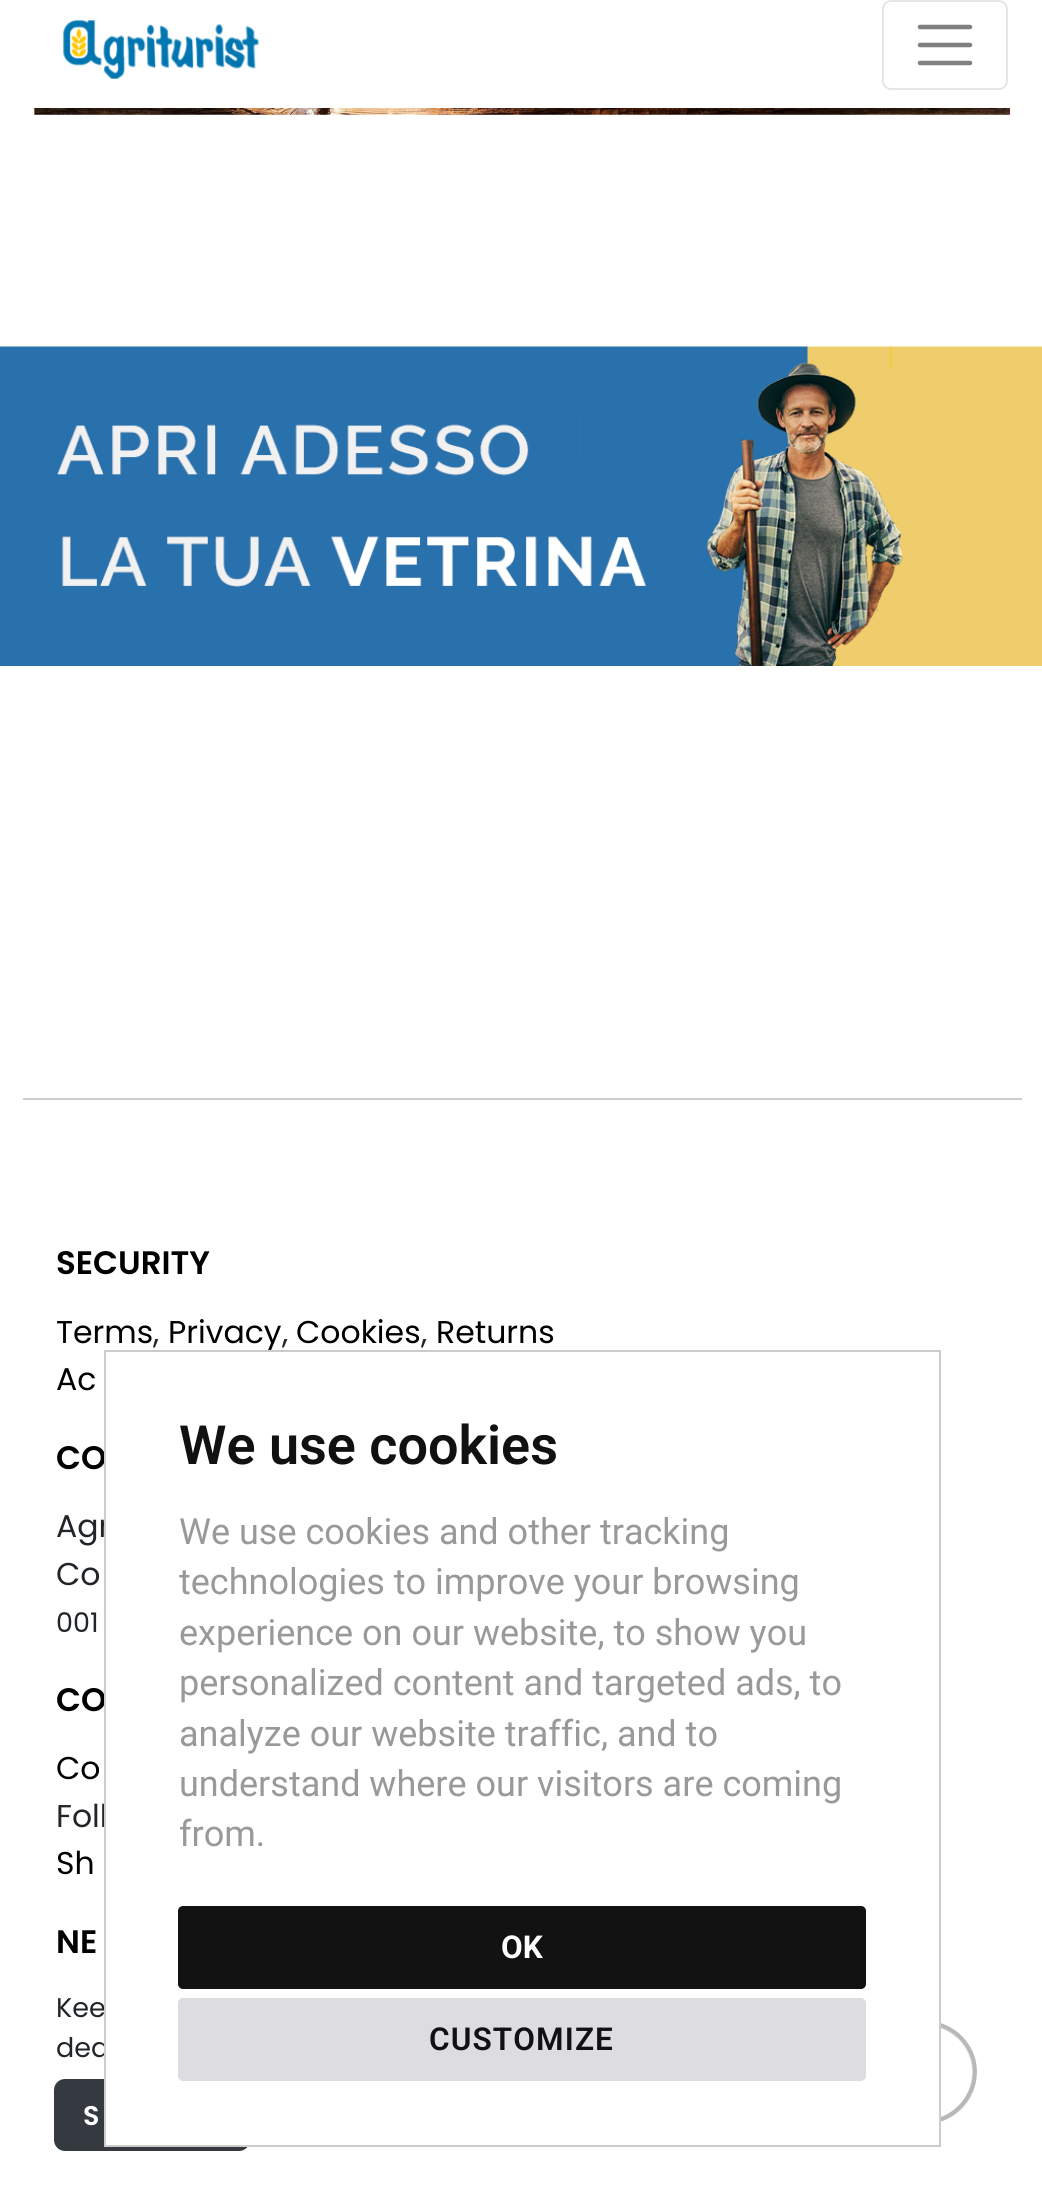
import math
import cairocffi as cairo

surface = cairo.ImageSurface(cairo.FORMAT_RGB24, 1042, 2191)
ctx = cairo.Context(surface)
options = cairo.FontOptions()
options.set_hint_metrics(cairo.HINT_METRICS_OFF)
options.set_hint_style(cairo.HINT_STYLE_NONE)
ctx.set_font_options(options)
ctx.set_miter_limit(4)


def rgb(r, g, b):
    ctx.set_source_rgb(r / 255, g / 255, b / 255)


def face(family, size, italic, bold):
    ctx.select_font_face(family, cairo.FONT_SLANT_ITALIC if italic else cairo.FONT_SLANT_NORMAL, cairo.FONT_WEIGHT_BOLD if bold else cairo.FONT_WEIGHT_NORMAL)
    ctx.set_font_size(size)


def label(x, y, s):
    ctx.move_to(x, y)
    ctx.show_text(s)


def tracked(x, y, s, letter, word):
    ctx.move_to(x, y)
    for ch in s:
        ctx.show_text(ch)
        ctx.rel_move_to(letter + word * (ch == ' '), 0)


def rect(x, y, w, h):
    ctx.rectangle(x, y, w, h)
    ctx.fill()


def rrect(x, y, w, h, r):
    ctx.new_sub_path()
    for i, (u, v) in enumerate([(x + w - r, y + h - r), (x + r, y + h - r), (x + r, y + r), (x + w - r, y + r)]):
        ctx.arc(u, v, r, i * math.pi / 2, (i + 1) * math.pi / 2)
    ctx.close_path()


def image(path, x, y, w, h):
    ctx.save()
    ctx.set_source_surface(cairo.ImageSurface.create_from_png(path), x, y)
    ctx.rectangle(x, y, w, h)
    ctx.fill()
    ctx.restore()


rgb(255, 255, 255)
ctx.paint()
image('image0.png', 63, 20, 197, 59)
rrect(883, 1, 124, 88, 8)
rgb(230, 230, 230)
ctx.stroke()
ctx.new_path()
ctx.move_to(920, 27)
ctx.line_to(970, 27)
ctx.move_to(920, 45)
ctx.line_to(970, 45)
ctx.move_to(920, 63)
ctx.line_to(970, 63)
rgb(128, 128, 128)
ctx.set_line_width(4.5)
ctx.set_line_cap(cairo.LINE_CAP_ROUND)
ctx.stroke()
image('image1.png', 34, 108, 976, 7)
image('image2.png', 0, 346, 1042, 320)
rgb(204, 204, 204)
rect(23, 1098, 999, 2)
face('Poppins SemiBold', 32.5, 0, 0)
rgb(0, 0, 0)
label(56, 1274, 'SECURITY')
face('Poppins', 31.5, 0, 0)
label(56, 1343, 'Terms')
rgb(33, 37, 41)
label(153, 1343, ',')
rgb(0, 0, 0)
label(168, 1343, 'Privacy')
rgb(33, 37, 41)
label(282, 1343, ',')
rgb(0, 0, 0)
label(296, 1343, 'Cookies')
rgb(33, 37, 41)
label(421, 1343, ',')
rgb(0, 0, 0)
label(436, 1343, 'Returns')
label(56, 1390, 'Ac')
face('Poppins SemiBold', 32.5, 0, 0)
label(56, 1469, 'CO')
face('Poppins', 31.5, 0, 0)
rgb(33, 37, 41)
label(56, 1537, 'Agr')
label(56, 1585, 'Co')
face('Poppins', 27, 0, 0)
label(56, 1632, '001')
face('Poppins SemiBold', 32.5, 0, 0)
rgb(0, 0, 0)
label(56, 1711, 'CO')
face('Poppins', 31.5, 0, 0)
label(56, 1779, 'Co')
rgb(33, 37, 41)
label(56, 1827, 'Foll')
rgb(0, 0, 0)
label(56, 1874, 'Sh')
face('Poppins SemiBold', 32.5, 0, 0)
label(56, 1953, 'NE')
face('Poppins', 27, 0, 0)
rgb(33, 37, 41)
label(56, 2017, 'Kee')
label(56, 2057, 'ded')
rgb(52, 58, 64)
rrect(55, 2080, 194, 70, 10)
ctx.fill_preserve()
ctx.set_line_width(2)
ctx.set_line_cap(cairo.LINE_CAP_BUTT)
ctx.stroke()
face('Poppins SemiBold', 27, 0, 0)
rgb(255, 255, 255)
label(83, 2125, 'S')
rrect(875.5, 2023.5, 99, 98, 49)
rgb(230, 230, 230)
ctx.set_line_width(5)
ctx.stroke()
ctx.new_path()
ctx.move_to(925, 2022.5)
ctx.curve_to(938, 2022.5, 950.5, 2028, 960, 2037)
ctx.curve_to(997.5, 2074.5, 958, 2135.5, 909, 2119.5)
ctx.set_source_rgba(0, 0, 0, 0.2)
ctx.set_line_width(4.1)
ctx.stroke()
rgb(255, 255, 255)
rect(106, 1519, 833, 626)
ctx.rectangle(105, 1351, 835, 795)
rgb(204, 204, 204)
ctx.set_line_width(2)
ctx.stroke()
face('Roboto SemiBold', 54, 0, 0)
rgb(17, 17, 17)
label(179, 1464, 'We use cookies')
face('Roboto', 36, 0, 0)
rgb(153, 153, 153)
label(179, 1544, 'We use cookies and other tracking')
label(179, 1594, 'technologies to improve your browsing')
label(179, 1645, 'experience on our website, to show you')
label(179, 1695, 'personalized content and targeted ads, to')
label(179, 1746, 'analyze our website traffic, and to')
label(179, 1796, 'understand where our visitors are coming')
label(179, 1846, 'from.')
rgb(18, 18, 18)
rrect(178, 1906, 688, 83, 5)
ctx.fill()
face('Roboto', 31.5, 0, 1)
rgb(255, 255, 255)
label(501, 1958, 'OK')
rgb(220, 220, 225)
rrect(178, 1998, 688, 83, 5)
ctx.fill()
face('Roboto SemiBold', 31.5, 0, 0)
rgb(17, 17, 17)
tracked(429, 2050, 'CUSTOMIZE', 1.1, 0)
surface.write_to_png('render.png')
